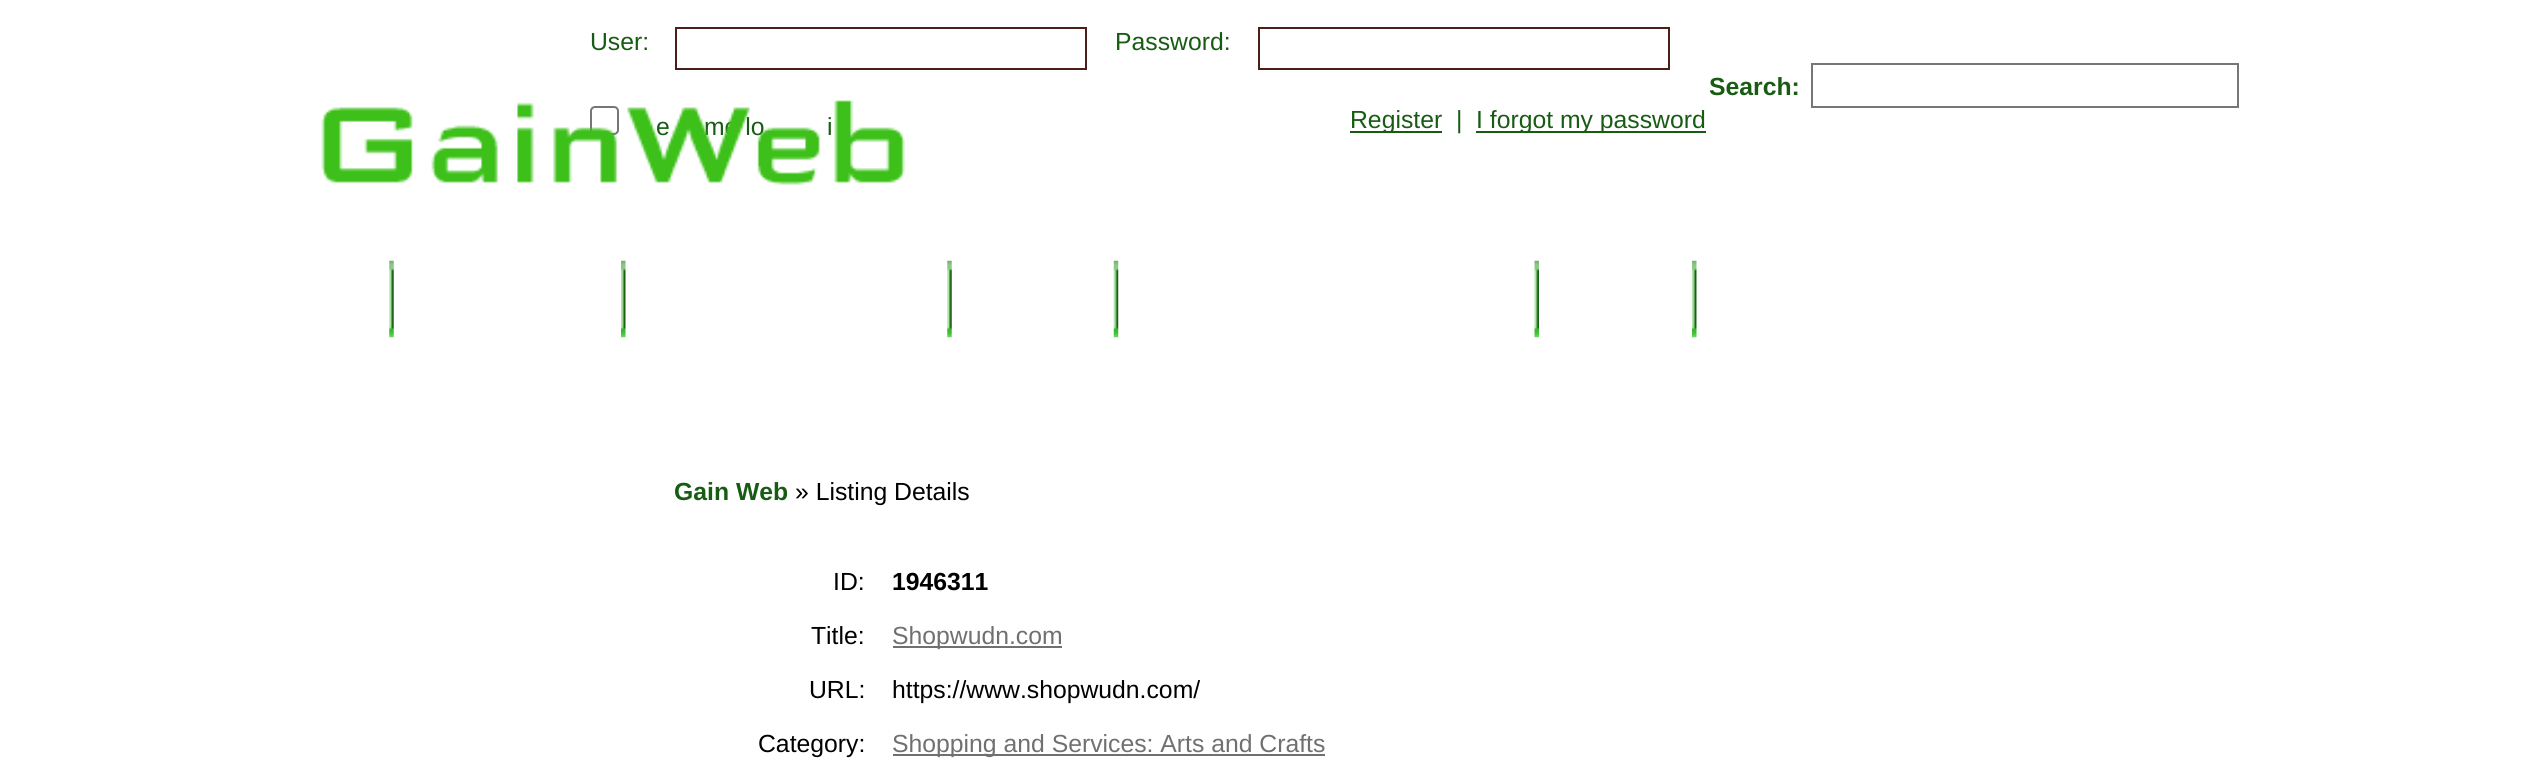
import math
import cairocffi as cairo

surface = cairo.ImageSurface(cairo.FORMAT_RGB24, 2530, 771)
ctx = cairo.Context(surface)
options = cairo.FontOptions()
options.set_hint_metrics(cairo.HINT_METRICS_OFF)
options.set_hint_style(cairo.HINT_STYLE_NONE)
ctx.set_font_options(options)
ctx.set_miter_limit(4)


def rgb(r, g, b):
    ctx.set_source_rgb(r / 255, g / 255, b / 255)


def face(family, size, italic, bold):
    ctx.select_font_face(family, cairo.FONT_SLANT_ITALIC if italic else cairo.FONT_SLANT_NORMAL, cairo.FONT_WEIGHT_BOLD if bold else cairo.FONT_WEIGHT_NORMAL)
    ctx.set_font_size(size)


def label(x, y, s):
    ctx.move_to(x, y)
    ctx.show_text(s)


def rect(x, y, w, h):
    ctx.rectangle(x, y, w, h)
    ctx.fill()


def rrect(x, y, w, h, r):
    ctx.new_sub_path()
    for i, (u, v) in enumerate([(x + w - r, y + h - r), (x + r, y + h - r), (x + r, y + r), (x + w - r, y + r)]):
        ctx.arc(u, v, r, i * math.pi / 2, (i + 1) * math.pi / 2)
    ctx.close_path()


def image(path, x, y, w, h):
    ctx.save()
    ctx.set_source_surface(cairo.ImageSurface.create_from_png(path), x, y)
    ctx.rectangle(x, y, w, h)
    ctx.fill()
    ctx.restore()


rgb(255, 255, 255)
ctx.paint()
face('Liberation Sans', 24.75, 0, 0)
rgb(24, 92, 20)
label(590, 50, 'User:')
ctx.rectangle(676, 28, 410, 41)
rgb(76, 30, 25)
ctx.stroke()
rgb(24, 92, 20)
label(1115, 50, 'Password:')
ctx.rectangle(1259, 28, 410, 41)
rgb(76, 30, 25)
ctx.stroke()
rrect(591, 107, 27, 27, 4)
rgb(118, 118, 118)
ctx.stroke()
rgb(24, 92, 20)
label(656, 135, 'e')
label(704, 135, 'me lo')
label(827, 135, 'i')
rect(1350, 131, 92, 2)
label(1350, 128, 'Register')
label(1456, 128, '|')
rect(1476, 131, 230, 2)
label(1476, 128, 'I forgot my password')
face('Liberation Sans', 24.75, 0, 1)
label(1709, 95, 'Search:')
ctx.rectangle(1812, 64, 426, 43)
rgb(119, 119, 119)
ctx.stroke()
image('image0.png', 321, 100, 584, 85)
image('image1.png', 389, 260, 5, 78)
image('image2.png', 621, 260, 5, 78)
image('image1.png', 947, 260, 5, 78)
image('image3.png', 1113, 260, 6, 78)
image('image4.png', 1534, 260, 5, 78)
image('image2.png', 1692, 260, 5, 78)
rgb(24, 92, 20)
label(674, 500, 'Gain Web')
face('Liberation Sans', 24.75, 0, 0)
rgb(0, 0, 0)
label(795, 500, '» Listing Details')
label(833, 590, 'ID:')
face('Liberation Sans', 24.75, 0, 1)
label(892, 590, '1946311')
face('Liberation Sans', 24.75, 0, 0)
label(811, 644, 'Title:')
rgb(112, 112, 112)
rect(893, 646, 169, 2)
label(892, 644, 'Shopwudn.com')
rgb(0, 0, 0)
label(809, 698, 'URL:')
label(892, 698, 'https://www.shopwudn.com/')
label(758, 752, 'Category:')
rgb(112, 112, 112)
rect(893, 754, 432, 2)
label(892, 752, 'Shopping and Services: Arts and Crafts')
surface.write_to_png('render.png')
